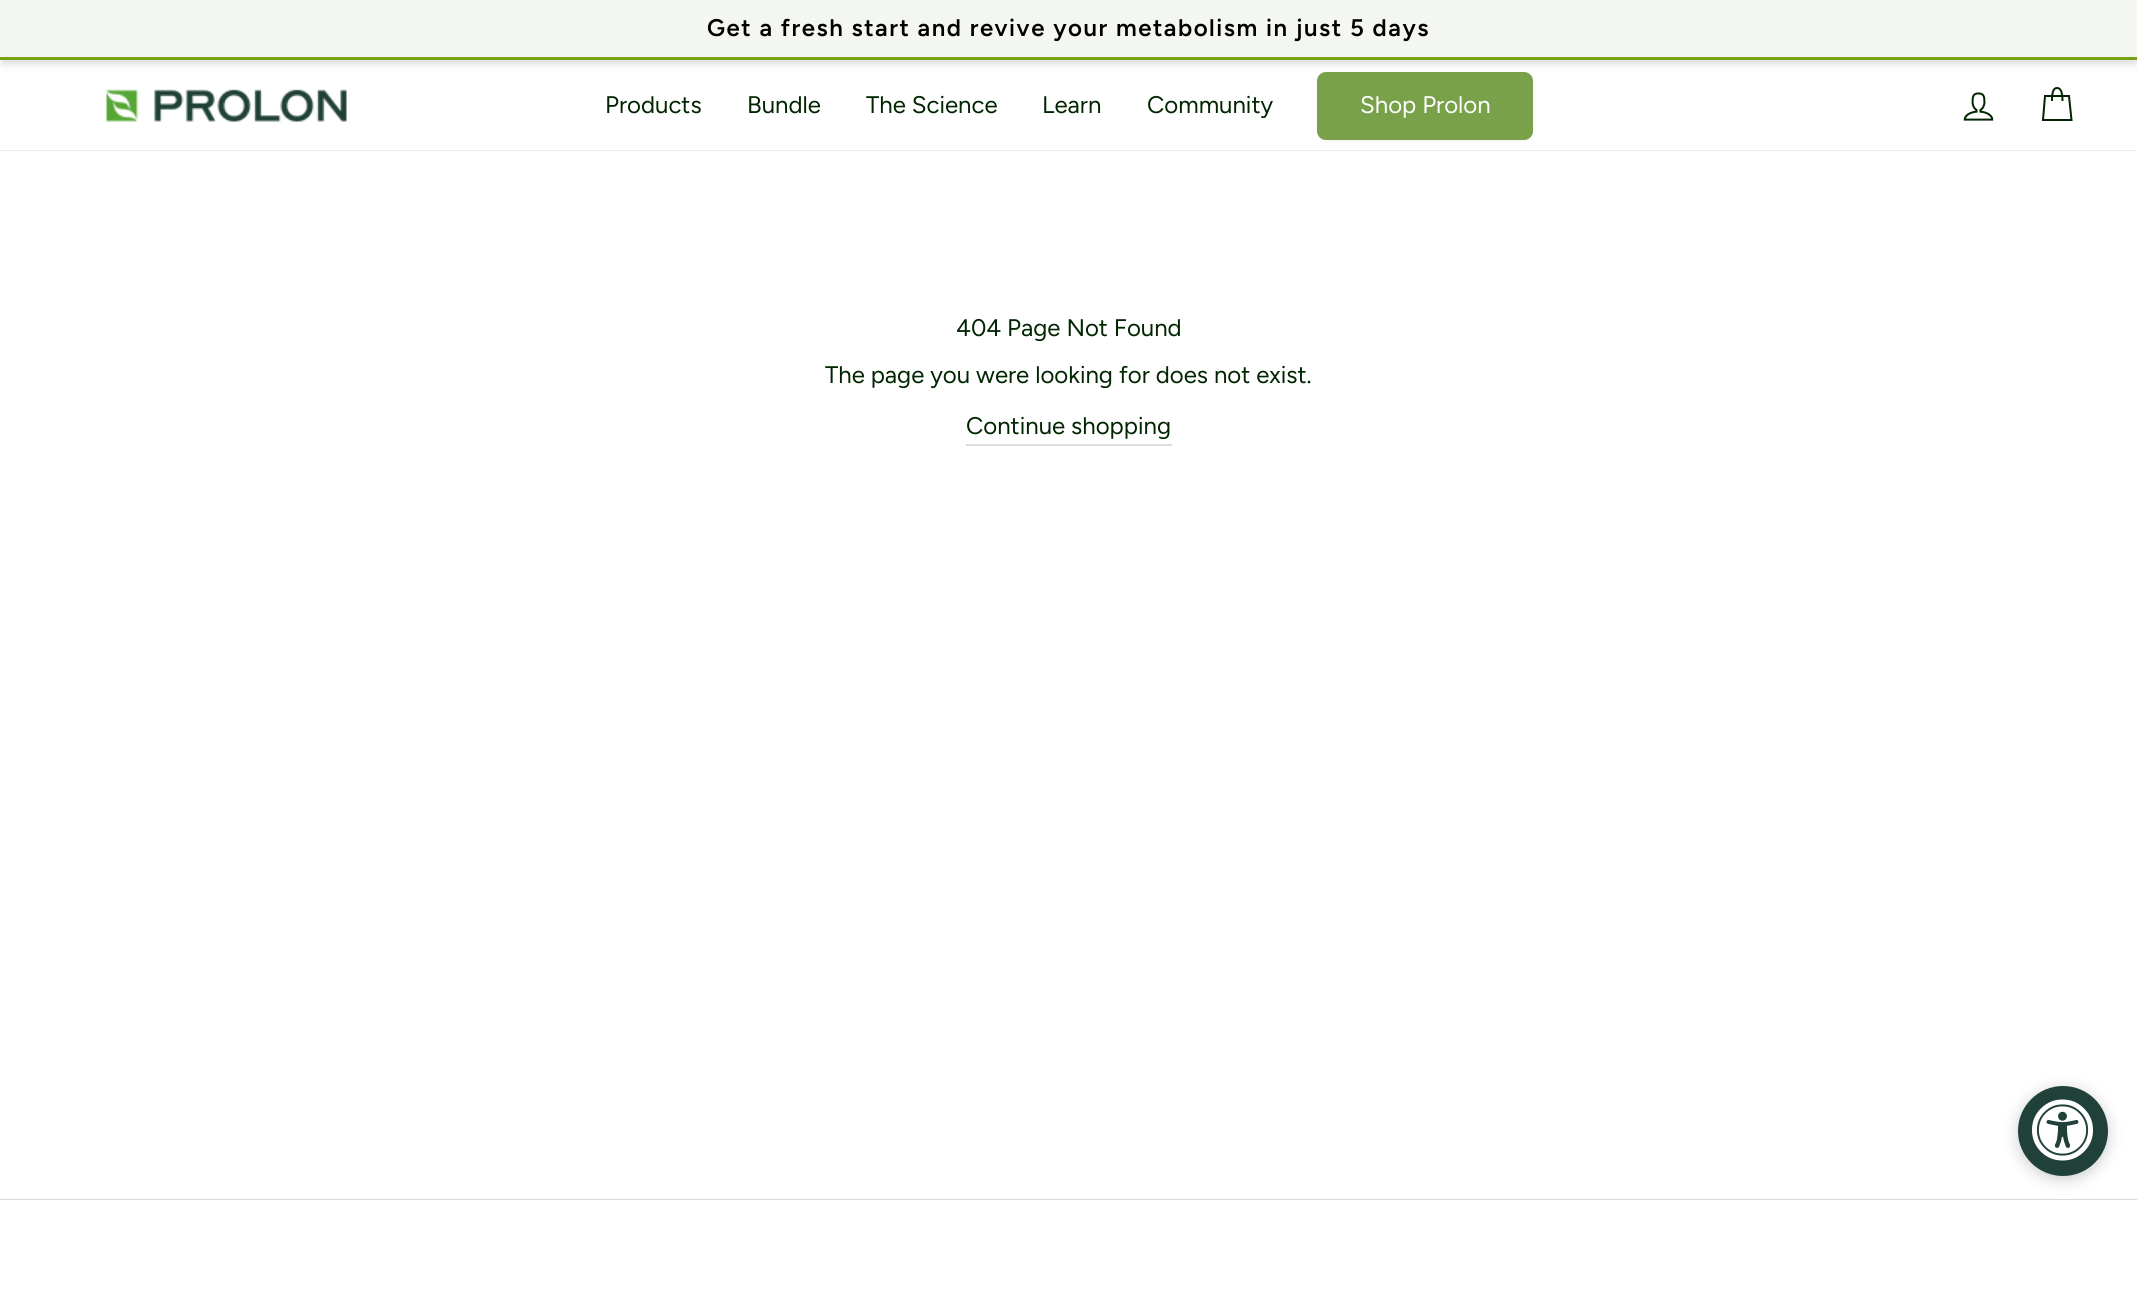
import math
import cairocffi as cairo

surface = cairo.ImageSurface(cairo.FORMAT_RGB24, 2137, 1295)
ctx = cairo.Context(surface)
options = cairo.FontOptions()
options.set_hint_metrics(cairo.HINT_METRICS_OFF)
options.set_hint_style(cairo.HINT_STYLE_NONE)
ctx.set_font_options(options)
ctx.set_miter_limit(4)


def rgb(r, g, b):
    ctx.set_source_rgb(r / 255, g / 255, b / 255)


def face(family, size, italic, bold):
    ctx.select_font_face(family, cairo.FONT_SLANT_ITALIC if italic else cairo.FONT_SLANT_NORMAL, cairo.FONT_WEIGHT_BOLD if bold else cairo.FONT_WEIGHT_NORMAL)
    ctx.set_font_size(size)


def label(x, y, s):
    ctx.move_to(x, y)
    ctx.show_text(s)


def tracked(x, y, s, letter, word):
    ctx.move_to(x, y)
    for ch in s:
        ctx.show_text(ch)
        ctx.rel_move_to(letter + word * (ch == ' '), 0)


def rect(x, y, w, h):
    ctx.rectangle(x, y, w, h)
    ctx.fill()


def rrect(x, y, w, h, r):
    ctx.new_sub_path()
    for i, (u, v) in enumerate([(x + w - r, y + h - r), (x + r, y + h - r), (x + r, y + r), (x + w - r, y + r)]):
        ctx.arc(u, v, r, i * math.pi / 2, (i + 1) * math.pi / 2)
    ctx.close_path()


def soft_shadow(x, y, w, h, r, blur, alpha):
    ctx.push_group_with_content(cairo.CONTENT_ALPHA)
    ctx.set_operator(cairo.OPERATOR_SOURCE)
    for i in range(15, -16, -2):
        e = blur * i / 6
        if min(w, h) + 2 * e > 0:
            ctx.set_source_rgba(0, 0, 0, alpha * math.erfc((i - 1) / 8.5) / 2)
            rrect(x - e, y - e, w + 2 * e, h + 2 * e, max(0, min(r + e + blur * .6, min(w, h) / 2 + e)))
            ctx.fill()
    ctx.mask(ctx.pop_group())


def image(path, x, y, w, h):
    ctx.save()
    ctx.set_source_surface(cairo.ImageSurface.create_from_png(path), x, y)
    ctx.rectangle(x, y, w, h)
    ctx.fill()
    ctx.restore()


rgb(255, 255, 255)
ctx.paint()
ctx.save()
ctx.rectangle(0, 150, 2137, 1)
ctx.clip()
rgb(0, 0, 0)
soft_shadow(0, 0, 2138, 150, 0, 1, 0.2)
ctx.restore()
rgb(0, 0, 0)
soft_shadow(2, 5, 2134, 57, 0, 3, 0.06)
soft_shadow(2, 8, 2134, 57, 0, 4.5, 0.1)
rgb(244, 247, 241)
rect(0, 0, 2137, 57)
rgb(119, 161, 23)
rect(0, 57, 2137, 3)
face('Figtree SemiBold', 24, 0, 0)
rgb(0, 0, 0)
tracked(707, 36, 'Get a fresh start and revive your metabolism in just 5 days', 1.5, 0)
image('image0.png', 106, 89, 241, 33)
face('Figtree', 24, 0, 0)
rgb(0, 37, 0)
label(605, 113, 'Products')
label(747, 113, 'Bundle')
label(866, 113, 'The Science')
label(1042, 113, 'Learn')
label(1147, 113, 'Community')
rgb(0, 0, 0)
soft_shadow(1317, 74, 216, 67, 9, 1.5, 0.05)
rgb(120, 161, 74)
rrect(1317, 72, 216, 68, 9)
ctx.fill()
rgb(255, 255, 255)
label(1360, 113, 'Shop Prolon')
image('image1.png', 1963, 92, 31, 29)
ctx.new_path()
ctx.move_to(2052, 101)
ctx.curve_to(2052, 90.5, 2054, 88, 2057, 88)
ctx.curve_to(2060, 88, 2062.5, 90.5, 2062.5, 101)
ctx.move_to(2045, 96)
ctx.line_to(2069, 96)
ctx.line_to(2071.5, 120)
ctx.line_to(2043, 120)
ctx.close_path()
rgb(0, 37, 0)
ctx.stroke()
label(956, 336, '404 Page Not Found')
label(825, 383, 'The page you were looking for does not exist.')
rgb(217, 222, 217)
rect(966, 444, 206, 2)
rgb(0, 37, 0)
label(966, 434, 'Continue shopping')
rgb(216, 216, 216)
rect(0, 1199, 2137, 1)
rgb(0, 0, 0)
soft_shadow(2018, 1089, 90, 90, 45, 7.5, 0.2)
rgb(31, 65, 57)
ctx.arc(2063, 1131, 45, 0, 2 * math.pi)
ctx.fill()
image('image2.png', 2032, 1099, 61, 62)
surface.write_to_png('render.png')
